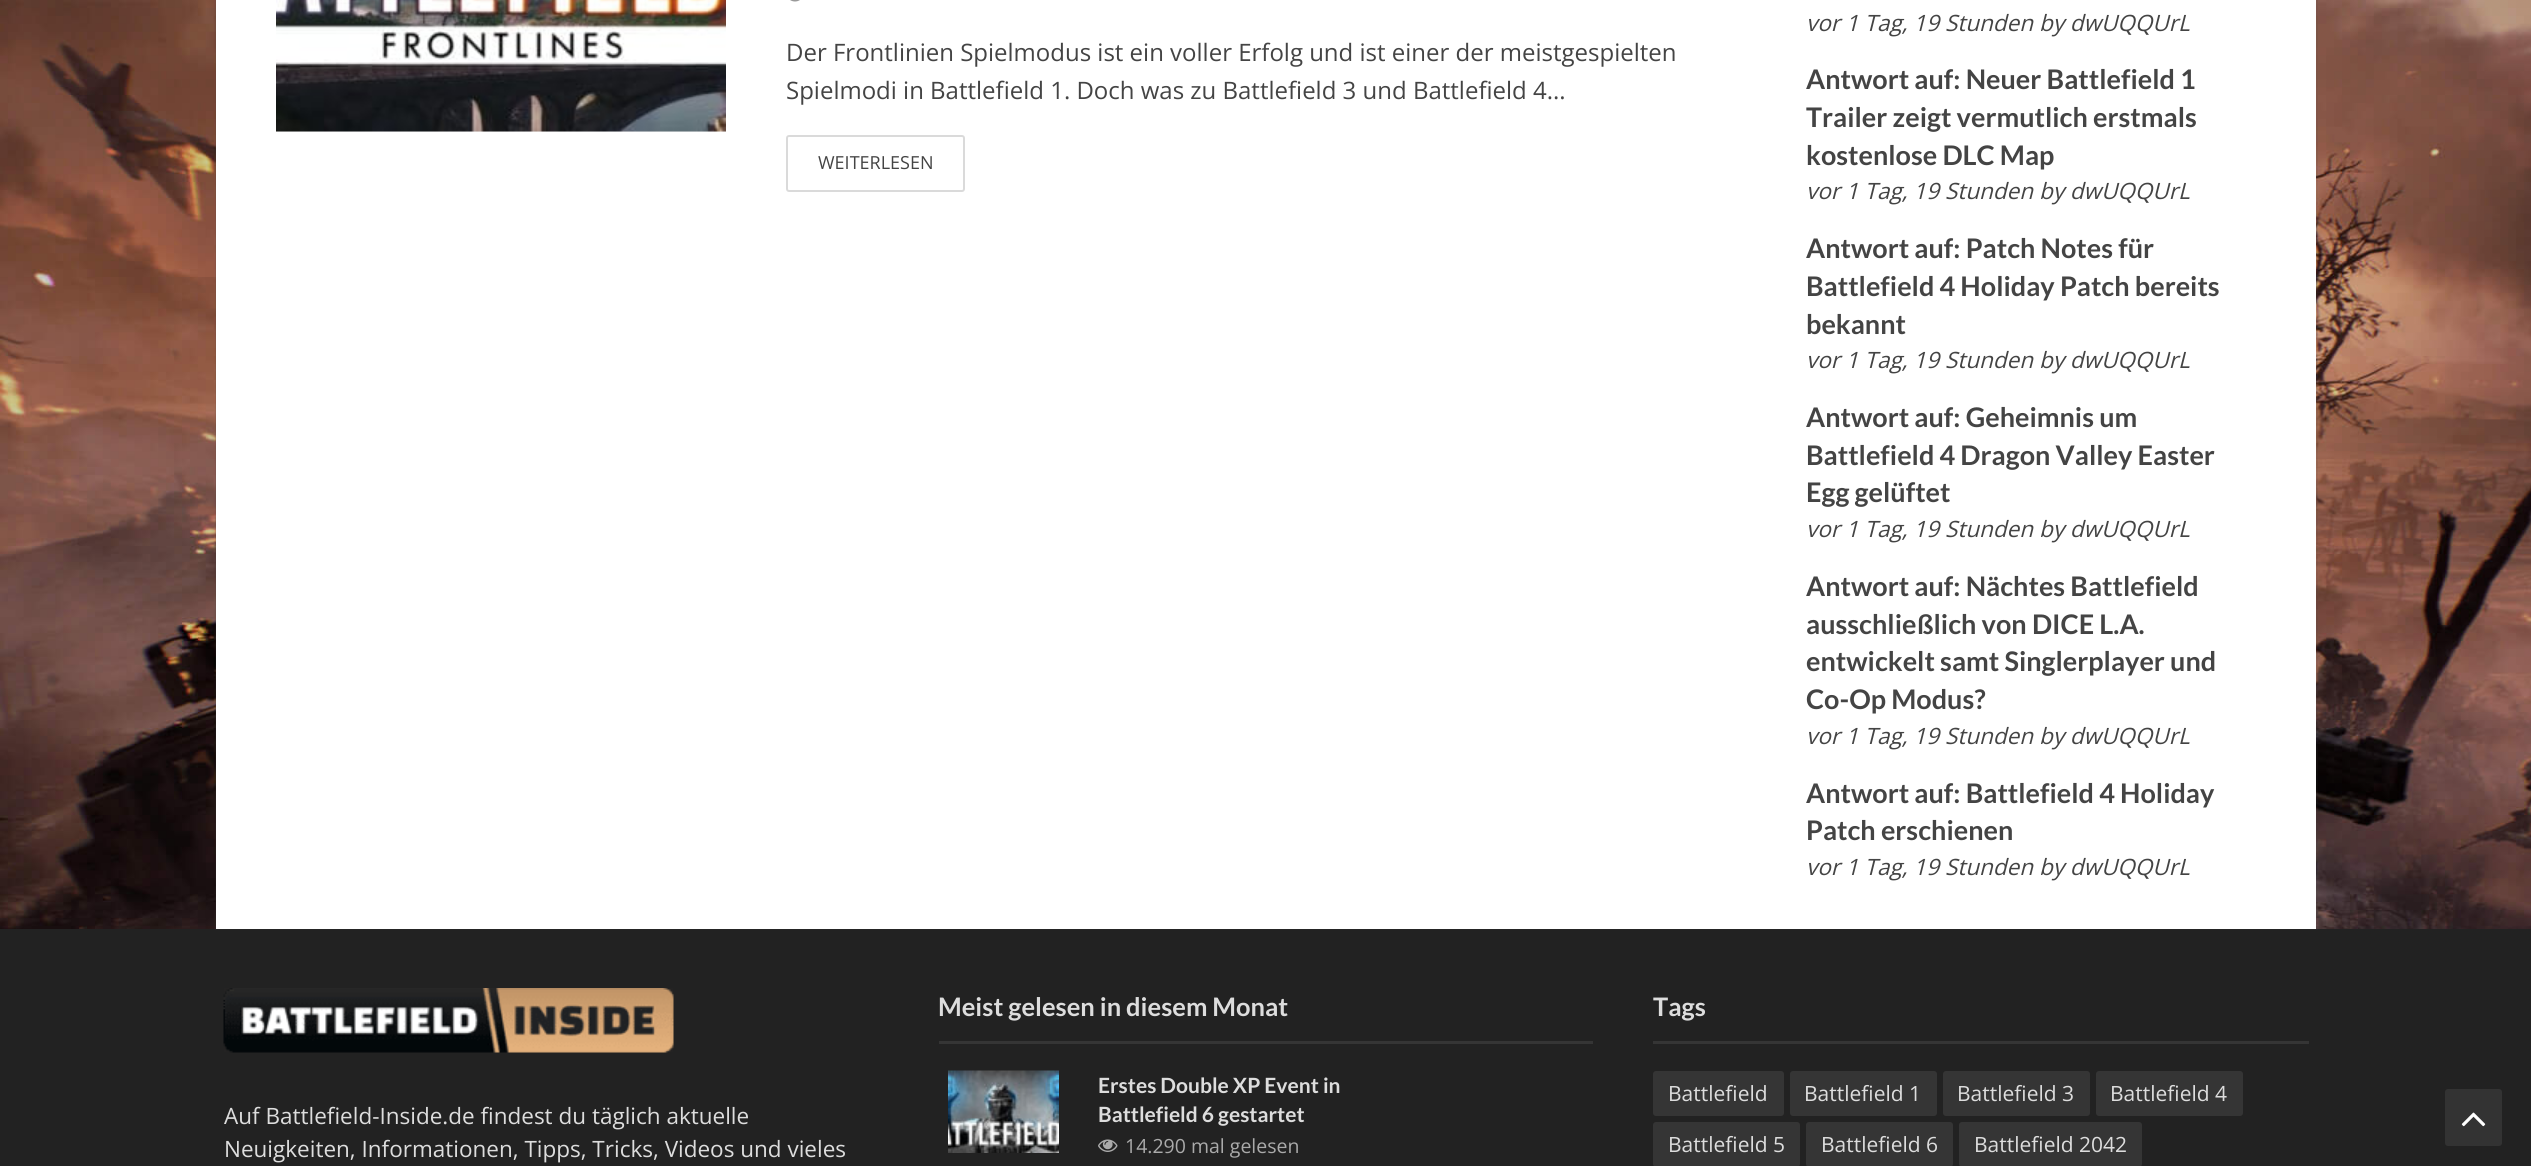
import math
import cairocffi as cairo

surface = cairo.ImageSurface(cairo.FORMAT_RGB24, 2531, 1166)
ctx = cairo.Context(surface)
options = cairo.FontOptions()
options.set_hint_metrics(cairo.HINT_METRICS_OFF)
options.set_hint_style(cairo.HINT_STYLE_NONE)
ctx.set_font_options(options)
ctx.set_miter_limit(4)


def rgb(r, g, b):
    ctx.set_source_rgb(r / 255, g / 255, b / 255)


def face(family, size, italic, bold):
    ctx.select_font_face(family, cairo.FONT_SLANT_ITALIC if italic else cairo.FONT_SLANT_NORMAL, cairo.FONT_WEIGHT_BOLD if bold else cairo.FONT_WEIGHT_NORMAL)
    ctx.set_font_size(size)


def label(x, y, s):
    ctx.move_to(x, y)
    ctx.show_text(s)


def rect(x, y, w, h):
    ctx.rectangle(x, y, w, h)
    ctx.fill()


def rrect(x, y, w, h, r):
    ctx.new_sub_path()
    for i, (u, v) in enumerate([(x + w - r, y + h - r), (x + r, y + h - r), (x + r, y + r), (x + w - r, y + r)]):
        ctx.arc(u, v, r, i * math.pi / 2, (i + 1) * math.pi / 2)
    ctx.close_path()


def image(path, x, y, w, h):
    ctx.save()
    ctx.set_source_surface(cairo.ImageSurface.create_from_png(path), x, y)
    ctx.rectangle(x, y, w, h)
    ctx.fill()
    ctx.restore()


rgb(255, 255, 255)
ctx.paint()
image('image0.png', 0, 0, 2531, 929)
rgb(34, 34, 34)
rect(0, 929, 2531, 237)
ctx.rectangle(216, -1, 2101, 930)
ctx.set_source_rgba(0.267, 0.267, 0.267, 0.1)
ctx.stroke()
rgb(255, 255, 255)
rect(216, 0, 2100, 929)
rgb(242, 242, 242)
rect(276, 131, 450, 1)
image('image1.png', 276, 0, 450, 132)
image('image2.png', 790, 0, 10, 2)
face('Open Sans', 24, 0, 0)
rgb(68, 68, 68)
label(786, 61, 'Der Frontlinien Spielmodus ist ein voller Erfolg und ist einer der meistgespielten')
label(786, 99, 'Spielmodi in Battlefield 1. Doch was zu Battlefield 3 und Battlefield 4...')
rrect(787, 136, 177, 55, 2)
rgb(218, 218, 218)
ctx.stroke()
face('Open Sans', 18, 0, 0)
rgb(68, 68, 68)
label(818, 169, 'WEITERLESEN')
face('Open Sans', 22.5, 1, 0)
label(1806, 31, 'vor 1 Tag, 19 Stunden by dwUQQUrL')
face('Lato', 27, 0, 1)
label(1806, 89, 'Antwort auf: Neuer Battlefield 1')
label(1806, 127, 'Trailer zeigt vermutlich erstmals')
label(1806, 165, 'kostenlose DLC Map')
face('Open Sans', 22.5, 1, 0)
label(1806, 199, 'vor 1 Tag, 19 Stunden by dwUQQUrL')
face('Lato', 27, 0, 1)
label(1806, 258, 'Antwort auf: Patch Notes für')
label(1806, 296, 'Battlefield 4 Holiday Patch bereits')
label(1806, 334, 'bekannt')
face('Open Sans', 22.5, 1, 0)
label(1806, 368, 'vor 1 Tag, 19 Stunden by dwUQQUrL')
face('Lato', 27, 0, 1)
label(1806, 427, 'Antwort auf: Geheimnis um')
label(1806, 465, 'Battlefield 4 Dragon Valley Easter')
label(1806, 502, 'Egg gelüftet')
face('Open Sans', 22.5, 1, 0)
label(1806, 537, 'vor 1 Tag, 19 Stunden by dwUQQUrL')
face('Lato', 27, 0, 1)
label(1806, 596, 'Antwort auf: Nächtes Battlefield')
label(1806, 634, 'ausschließlich von DICE L.A.')
label(1806, 671, 'entwickelt samt Singlerplayer und')
label(1806, 709, 'Co-Op Modus?')
face('Open Sans', 22.5, 1, 0)
label(1806, 744, 'vor 1 Tag, 19 Stunden by dwUQQUrL')
face('Lato', 27, 0, 1)
label(1806, 803, 'Antwort auf: Battlefield 4 Holiday')
label(1806, 840, 'Patch erschienen')
face('Open Sans', 22.5, 1, 0)
label(1806, 875, 'vor 1 Tag, 19 Stunden by dwUQQUrL')
image('image3.png', 223, 988, 451, 65)
face('Open Sans', 22.5, 0, 0)
rgb(221, 221, 221)
label(224, 1124, 'Auf Battlefield-Inside.de findest du täglich aktuelle')
label(224, 1157, 'Neuigkeiten, Informationen, Tipps, Tricks, Videos und vieles')
face('Lato', 25.5, 0, 1)
label(938, 1016, 'Meist gelesen in diesem Monat')
rgb(53, 53, 53)
rect(939, 1041, 654, 3)
image('image4.png', 948, 1070, 111, 83)
face('Lato', 21, 0, 1)
rgb(221, 221, 221)
label(1098, 1093, 'Erstes Double XP Event in')
label(1098, 1122, 'Battlefield 6 gestartet')
image('image5.png', 1098, 1139, 20, 13)
face('Open Sans', 19.5, 0, 0)
rgb(170, 170, 170)
label(1125, 1153, '14.290 mal gelesen')
face('Lato', 25.5, 0, 1)
rgb(221, 221, 221)
label(1653, 1016, 'Tags')
rgb(53, 53, 53)
rect(1653, 1041, 656, 3)
rrect(1653, 1071, 131, 45, 3)
ctx.fill()
face('Open Sans', 21, 0, 0)
rgb(221, 221, 221)
label(1668, 1101, 'Battlefield')
rgb(53, 53, 53)
rrect(1790, 1071, 147, 45, 3)
ctx.fill()
rgb(221, 221, 221)
label(1804, 1101, 'Battlefield 1')
rgb(53, 53, 53)
rrect(1943, 1071, 147, 45, 3)
ctx.fill()
rgb(221, 221, 221)
label(1957, 1101, 'Battlefield 3')
rgb(53, 53, 53)
rrect(2096, 1071, 147, 45, 3)
ctx.fill()
rgb(221, 221, 221)
label(2110, 1101, 'Battlefield 4')
rgb(53, 53, 53)
rrect(1653, 1122, 147, 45, 3)
ctx.fill()
rgb(221, 221, 221)
label(1668, 1152, 'Battlefield 5')
rgb(53, 53, 53)
rrect(1806, 1122, 147, 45, 3)
ctx.fill()
rgb(221, 221, 221)
label(1821, 1152, 'Battlefield 6')
rgb(53, 53, 53)
rrect(1959, 1122, 183, 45, 3)
ctx.fill()
rgb(221, 221, 221)
label(1974, 1152, 'Battlefield 2042')
rgb(51, 51, 51)
rrect(2445, 1089, 57, 57, 3)
ctx.fill()
image('image6.png', 2461, 1112, 25, 15)
surface.write_to_png('render.png')
